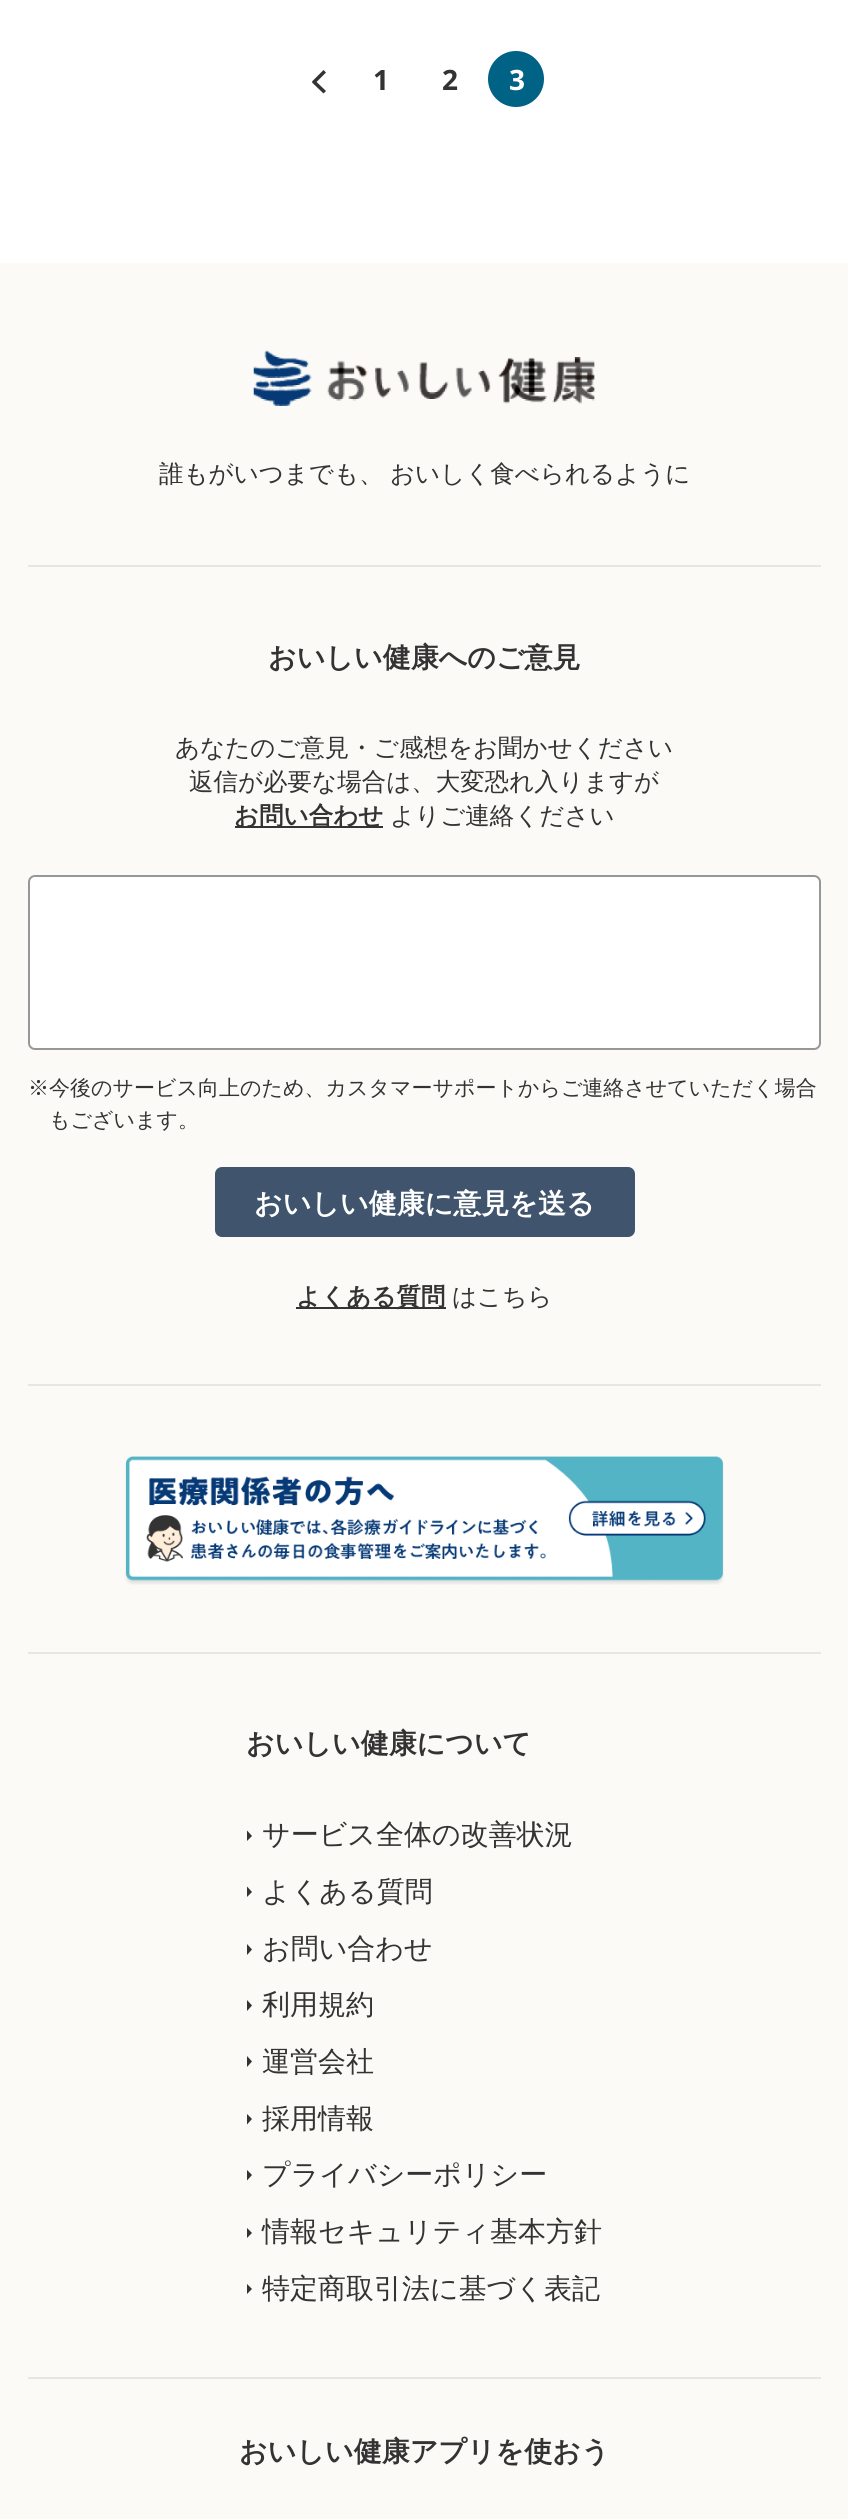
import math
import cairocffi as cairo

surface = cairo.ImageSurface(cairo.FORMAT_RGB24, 848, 2519)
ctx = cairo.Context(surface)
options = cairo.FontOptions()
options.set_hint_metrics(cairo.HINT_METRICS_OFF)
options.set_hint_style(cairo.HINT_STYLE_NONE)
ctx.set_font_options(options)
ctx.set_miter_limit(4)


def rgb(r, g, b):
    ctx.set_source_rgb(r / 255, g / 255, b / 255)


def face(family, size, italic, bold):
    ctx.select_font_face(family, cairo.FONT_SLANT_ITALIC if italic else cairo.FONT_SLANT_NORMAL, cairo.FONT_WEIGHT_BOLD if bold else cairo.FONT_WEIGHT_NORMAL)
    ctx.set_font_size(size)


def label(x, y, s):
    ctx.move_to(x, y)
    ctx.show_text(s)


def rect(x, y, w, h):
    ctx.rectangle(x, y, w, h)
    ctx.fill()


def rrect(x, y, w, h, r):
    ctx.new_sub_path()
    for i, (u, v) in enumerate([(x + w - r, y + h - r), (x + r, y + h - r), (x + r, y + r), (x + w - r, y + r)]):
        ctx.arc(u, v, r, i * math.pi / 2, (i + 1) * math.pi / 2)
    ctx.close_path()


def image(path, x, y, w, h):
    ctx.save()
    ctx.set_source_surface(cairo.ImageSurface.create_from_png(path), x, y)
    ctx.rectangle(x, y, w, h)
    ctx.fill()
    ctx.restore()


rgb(255, 255, 255)
ctx.paint()
rgb(51, 51, 51)
ctx.new_path()
ctx.move_to(323.5, 93.5)
ctx.line_to(312, 82.5)
ctx.line_to(314.5, 80)
ctx.line_to(326, 91)
ctx.close_path()
ctx.fill()
ctx.new_path()
ctx.move_to(314.5, 84)
ctx.line_to(312, 81.5)
ctx.line_to(323.5, 70)
ctx.line_to(326, 72.5)
ctx.close_path()
ctx.fill()
face('Open Sans', 28, 0, 1)
label(373, 90, '1')
label(442, 90, '2')
rgb(0, 98, 132)
ctx.new_path()
ctx.arc(516, 79, 28, 0, 2 * math.pi)
ctx.fill()
rgb(255, 255, 255)
label(509, 90, '3')
rgb(251, 250, 247)
rect(0, 263, 848, 2256)
image('image0.png', 253, 350, 342, 56)
face('WenQuanYi Zen Hei Medium', 24.5, 0, 0)
rgb(51, 51, 51)
label(159, 482, '誰もがいつまでも、')
label(390, 482, 'おいしく食べられるように')
rgb(231, 230, 228)
rect(28, 565, 793, 2)
face('WenQuanYi Zen Hei', 28, 0, 1)
rgb(51, 51, 51)
label(268, 667, 'おいしい健康へのご意見')
face('WenQuanYi Zen Hei Medium', 24.5, 0, 0)
label(175, 756, 'あなたのご意見・ご感想をお聞かせください')
label(189, 790, '返信が必要な場合は、大変恐れ入りますが')
rect(235, 826, 148, 2)
face('WenQuanYi Zen Hei', 24.5, 0, 1)
label(234, 824, 'お問い合わせ')
face('WenQuanYi Zen Hei Medium', 24.5, 0, 0)
label(390, 824, 'よりご連絡ください')
rgb(255, 255, 255)
rrect(29, 876, 791, 173, 6)
ctx.fill_preserve()
rgb(151, 151, 151)
ctx.stroke()
face('WenQuanYi Zen Hei Medium', 21, 0, 0)
rgb(51, 51, 51)
label(28, 1095, '※今後のサービス向上のため、カスタマーサポートからご連絡させていただく場合')
label(49, 1127, 'もございます。')
rgb(64, 85, 109)
rrect(215, 1167, 420, 70, 7)
ctx.fill()
face('WenQuanYi Zen Hei', 28, 0, 1)
rgb(255, 255, 255)
label(254, 1213, 'おいしい健康に意見を送る')
rgb(51, 51, 51)
rect(296, 1307, 150, 2)
face('WenQuanYi Zen Hei', 24.5, 0, 1)
label(296, 1305, 'よくある質問')
face('WenQuanYi Zen Hei Medium', 24.5, 0, 0)
label(452, 1305, 'はこちら')
rgb(231, 230, 228)
rect(28, 1384, 793, 2)
image('image1.png', 125, 1456, 599, 129)
rect(28, 1652, 793, 2)
face('WenQuanYi Zen Hei', 28, 0, 1)
rgb(51, 51, 51)
label(246, 1753, 'おいしい健康について')
ctx.new_path()
ctx.move_to(247, 1841)
ctx.line_to(247, 1830.5)
ctx.line_to(252, 1836)
ctx.close_path()
ctx.fill()
face('WenQuanYi Zen Hei Medium', 28, 0, 0)
label(262, 1844, 'サービス全体の改善状況')
ctx.new_path()
ctx.move_to(247, 1897)
ctx.line_to(247, 1886.5)
ctx.line_to(252, 1892)
ctx.close_path()
ctx.fill()
label(262, 1901, 'よくある質問')
ctx.new_path()
ctx.move_to(247, 1955)
ctx.line_to(247, 1944)
ctx.line_to(252, 1949.5)
ctx.close_path()
ctx.fill()
label(262, 1958, 'お問い合わせ')
ctx.new_path()
ctx.move_to(247, 2011)
ctx.line_to(247, 2000)
ctx.line_to(252, 2005.5)
ctx.close_path()
ctx.fill()
label(262, 2014, '利用規約')
ctx.new_path()
ctx.move_to(247, 2067)
ctx.line_to(247, 2056)
ctx.line_to(252, 2061.5)
ctx.close_path()
ctx.fill()
label(262, 2071, '運営会社')
ctx.new_path()
ctx.move_to(247, 2124.5)
ctx.line_to(247, 2114)
ctx.line_to(252, 2119)
ctx.close_path()
ctx.fill()
label(262, 2128, '採用情報')
ctx.new_path()
ctx.move_to(247, 2180.5)
ctx.line_to(247, 2170)
ctx.line_to(252, 2175)
ctx.close_path()
ctx.fill()
label(262, 2184, 'プライバシーポリシー')
ctx.new_path()
ctx.move_to(247, 2238)
ctx.line_to(247, 2228)
ctx.line_to(252, 2233)
ctx.close_path()
ctx.fill()
label(262, 2241, '情報セキュリティ基本方針')
ctx.new_path()
ctx.move_to(247, 2294)
ctx.line_to(247, 2284)
ctx.line_to(252, 2289)
ctx.close_path()
ctx.fill()
label(262, 2298, '特定商取引法に基づく表記')
rgb(231, 230, 228)
rect(28, 2377, 793, 2)
face('WenQuanYi Zen Hei', 28, 0, 1)
rgb(51, 51, 51)
label(239, 2461, 'おいしい健康アプリを使おう')
surface.write_to_png('render.png')
